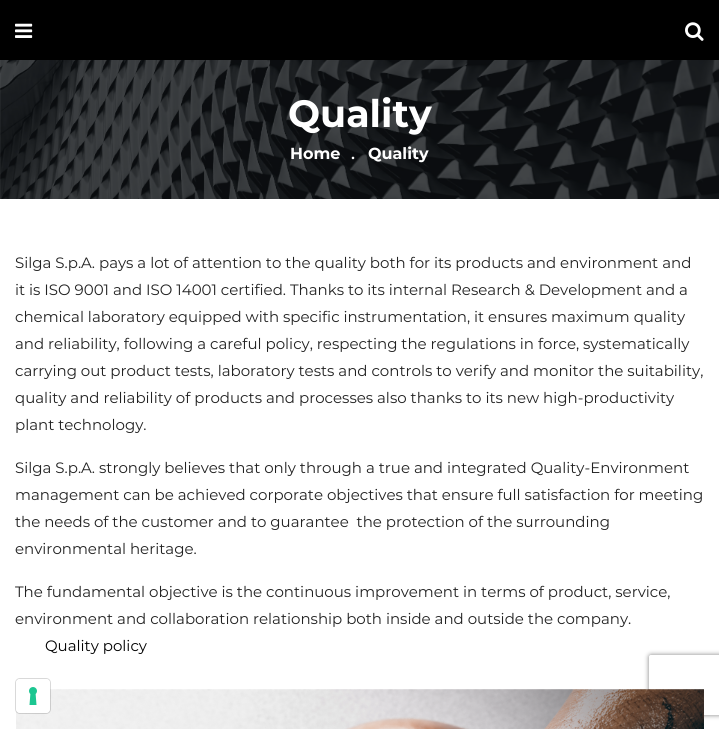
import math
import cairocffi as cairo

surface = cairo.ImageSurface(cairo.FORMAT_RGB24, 719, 729)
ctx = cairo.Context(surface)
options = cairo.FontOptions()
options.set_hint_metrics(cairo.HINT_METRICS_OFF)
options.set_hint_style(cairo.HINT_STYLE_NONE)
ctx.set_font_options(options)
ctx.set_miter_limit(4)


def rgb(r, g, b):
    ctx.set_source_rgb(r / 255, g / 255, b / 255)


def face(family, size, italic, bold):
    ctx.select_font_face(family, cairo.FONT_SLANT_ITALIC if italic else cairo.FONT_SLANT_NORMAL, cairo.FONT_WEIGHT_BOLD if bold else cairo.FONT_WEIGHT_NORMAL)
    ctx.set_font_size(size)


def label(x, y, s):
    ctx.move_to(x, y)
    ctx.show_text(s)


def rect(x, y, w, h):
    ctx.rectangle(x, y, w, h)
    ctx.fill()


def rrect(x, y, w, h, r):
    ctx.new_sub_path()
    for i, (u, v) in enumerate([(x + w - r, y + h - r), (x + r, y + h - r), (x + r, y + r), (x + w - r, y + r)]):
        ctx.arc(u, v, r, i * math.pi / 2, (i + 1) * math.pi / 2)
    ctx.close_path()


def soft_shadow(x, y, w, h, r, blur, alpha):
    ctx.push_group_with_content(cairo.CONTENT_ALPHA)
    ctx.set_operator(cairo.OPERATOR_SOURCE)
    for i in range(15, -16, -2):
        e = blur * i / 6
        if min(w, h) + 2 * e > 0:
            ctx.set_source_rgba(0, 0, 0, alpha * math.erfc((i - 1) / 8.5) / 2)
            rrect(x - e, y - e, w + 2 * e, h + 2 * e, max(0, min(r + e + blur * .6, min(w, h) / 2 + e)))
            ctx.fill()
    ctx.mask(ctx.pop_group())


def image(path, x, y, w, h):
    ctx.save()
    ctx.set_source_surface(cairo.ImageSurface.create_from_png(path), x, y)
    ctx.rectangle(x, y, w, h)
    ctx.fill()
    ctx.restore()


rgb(255, 255, 255)
ctx.paint()
rgb(0, 0, 0)
rect(0, 0, 719, 60)
image('image0.png', 15, 23, 18, 15)
image('image1.png', 685, 22, 19, 19)
image('image2.png', 0, 60, 719, 139)
face('Montserrat', 38, 0, 1)
rgb(255, 255, 255)
label(288, 127, 'Quality')
face('Montserrat', 16, 0, 1)
label(290, 159, 'Home')
face('Liberation Serif', 16, 0, 1)
label(351, 159, '.')
face('Montserrat', 16, 0, 1)
label(368, 159, 'Quality')
face('Montserrat', 15, 0, 0)
rgb(34, 34, 34)
label(15, 268, 'Silga S.p.A. pays a lot of attention to the quality both for its products and environment and')
label(15, 295, 'it is ISO 9001 and ISO 14001 certified. Thanks to its internal Research & Development and a')
label(15, 322, 'chemical laboratory equipped with specific instrumentation, it ensures maximum quality')
label(15, 349, 'and reliability, following a careful policy, respecting the regulations in force, systematically')
label(15, 376, 'carrying out product tests, laboratory tests and controls to verify and monitor the suitability,')
label(15, 403, 'quality and reliability of products and processes also thanks to its new high-productivity')
label(15, 430, 'plant technology.')
label(15, 473, 'Silga S.p.A. strongly believes that only through a true and integrated Quality-Environment')
label(15, 500, 'management can be achieved corporate objectives that ensure full satisfaction for meeting')
label(15, 527, 'the needs of the customer and to guarantee  the protection of the surrounding')
label(15, 554, 'environmental heritage.')
label(15, 597, 'The fundamental objective is the continuous improvement in terms of product, service,')
label(15, 624, 'environment and collaboration relationship both inside and outside the company.')
rgb(0, 0, 0)
label(45, 651, 'Quality policy')
ctx.save()
ctx.set_fill_rule(cairo.FILL_RULE_EVEN_ODD)
ctx.new_path()
ctx.move_to(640, 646)
ctx.line_to(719, 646)
ctx.line_to(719, 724)
ctx.line_to(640, 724)
ctx.close_path()
ctx.move_to(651, 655)
ctx.line_to(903, 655)
ctx.curve_to(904, 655, 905, 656, 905, 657)
ctx.line_to(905, 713)
ctx.curve_to(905, 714, 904, 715, 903, 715)
ctx.line_to(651, 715)
ctx.curve_to(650, 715, 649, 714, 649, 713)
ctx.line_to(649, 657)
ctx.curve_to(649, 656, 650, 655, 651, 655)
ctx.close_path()
ctx.clip()
rgb(128, 128, 128)
soft_shadow(649, 655, 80, 60, 2, 2.5, 1)
ctx.restore()
image('image3.png', 16, 689, 688, 40)
rrect(15.5, 678.5, 35, 35, 4.5)
ctx.set_source_rgba(0, 0, 0, 0.15)
ctx.set_line_width(1)
ctx.stroke()
rgb(255, 255, 255)
rrect(16, 679, 34, 34, 4)
ctx.fill()
image('image4.png', 29, 687, 8, 18)
surface.write_to_png('render.png')
